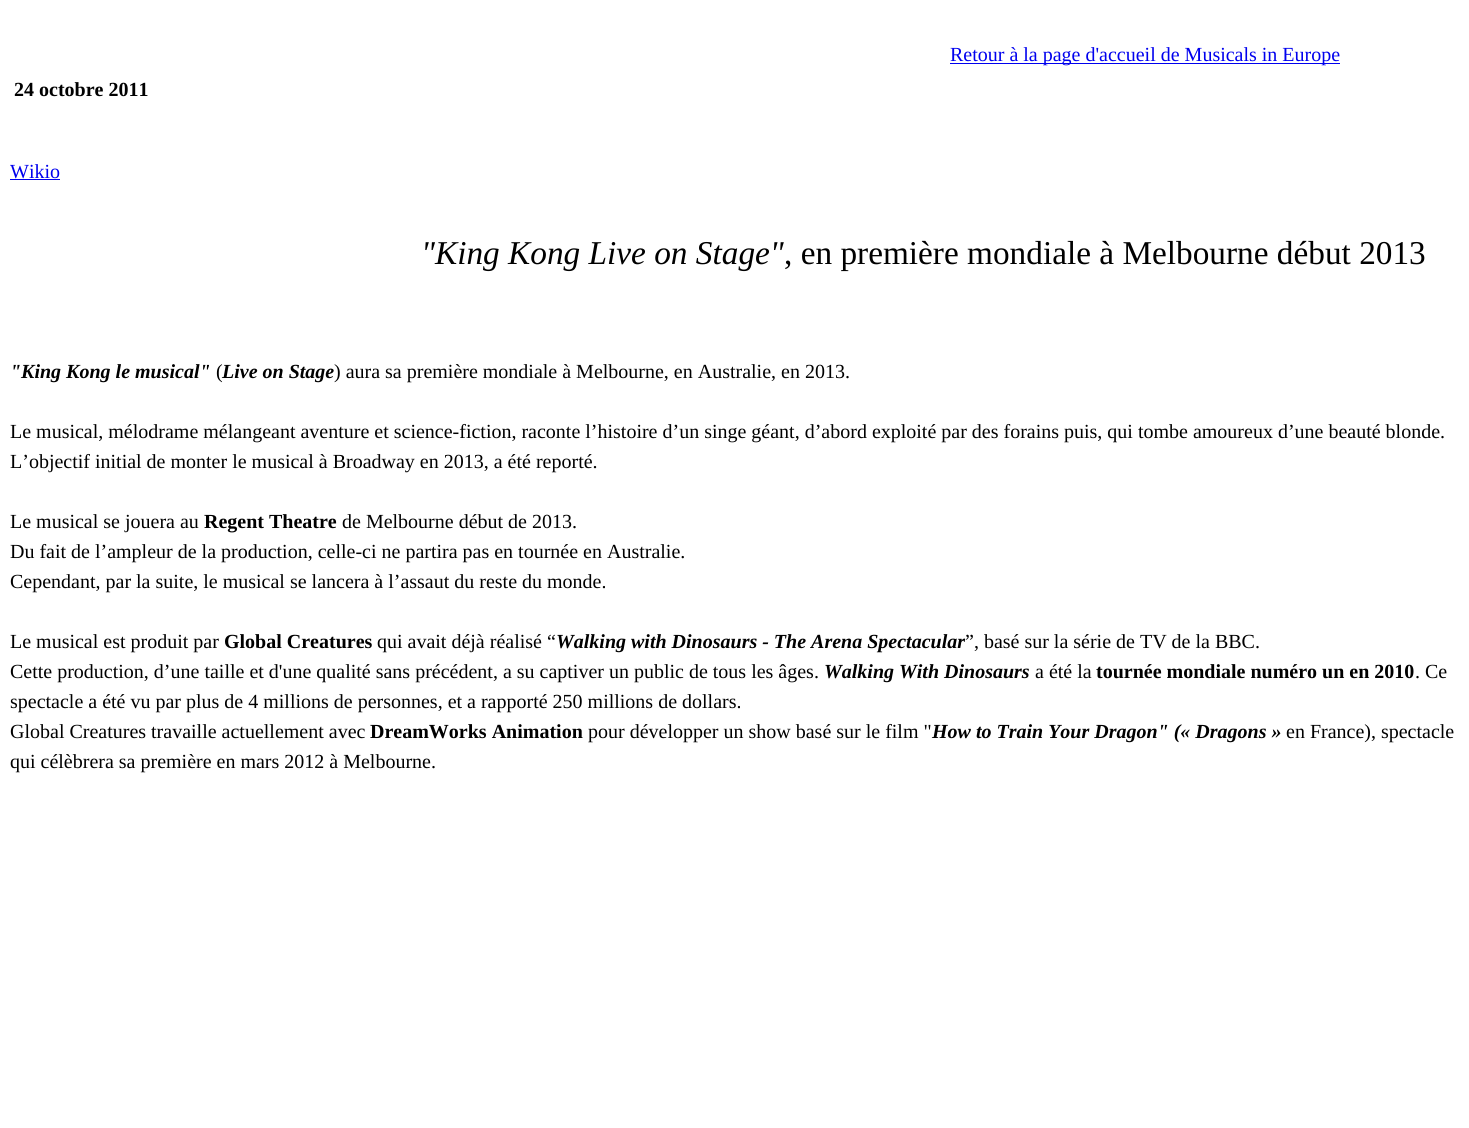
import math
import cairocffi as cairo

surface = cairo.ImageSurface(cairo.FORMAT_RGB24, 1469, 1128)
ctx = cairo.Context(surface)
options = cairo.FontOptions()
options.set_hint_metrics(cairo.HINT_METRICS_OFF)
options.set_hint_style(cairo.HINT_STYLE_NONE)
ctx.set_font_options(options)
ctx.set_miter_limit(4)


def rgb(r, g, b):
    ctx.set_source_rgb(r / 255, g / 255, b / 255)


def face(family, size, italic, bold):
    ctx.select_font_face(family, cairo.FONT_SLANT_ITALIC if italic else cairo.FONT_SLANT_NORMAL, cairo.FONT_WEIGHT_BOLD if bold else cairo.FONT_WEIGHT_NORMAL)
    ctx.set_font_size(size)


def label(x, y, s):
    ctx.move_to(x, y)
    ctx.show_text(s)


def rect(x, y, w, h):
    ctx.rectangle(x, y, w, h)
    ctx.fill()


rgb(255, 255, 255)
ctx.paint()
rgb(0, 0, 238)
rect(950, 63, 390, 1)
face('Liberation Serif', 20, 0, 0)
label(950, 61, 'Retour à la page d\'accueil de Musicals in Europe')
face('Liberation Serif', 20, 0, 1)
rgb(0, 0, 0)
label(14, 96, '24 octobre 2011')
face('Liberation Serif', 20, 0, 0)
rgb(0, 0, 238)
label(10, 178, 'Wikio')
rect(10, 179, 50, 1)
face('Liberation Serif', 33.3, 1, 0)
rgb(0, 0, 0)
label(421, 264, '"King Kong Live on Stage"')
face('Liberation Serif', 33.3, 0, 0)
label(784, 264, ', en première mondiale à Melbourne début 2013')
face('Liberation Serif', 20, 1, 1)
label(10, 378, '"King Kong le musical"')
face('Liberation Serif', 20, 0, 0)
label(216, 378, '(')
face('Liberation Serif', 20, 1, 1)
label(222, 378, 'Live on Stage')
face('Liberation Serif', 20, 0, 0)
label(334, 378, ') aura sa première mondiale à Melbourne, en Australie, en 2013.')
label(10, 438, 'Le musical, mélodrame mélangeant aventure et science-fiction, raconte l’histoire d’un singe géant, d’abord exploité par des forains puis, qui tombe amoureux d’une beauté blonde.')
label(10, 468, 'L’objectif initial de monter le musical à Broadway en 2013, a été reporté.')
label(10, 528, 'Le musical se jouera au')
face('Liberation Serif', 20, 0, 1)
label(204, 528, 'Regent Theatre')
face('Liberation Serif', 20, 0, 0)
label(342, 528, 'de Melbourne début de 2013.')
label(10, 558, 'Du fait de l’ampleur de la production, celle-ci ne partira pas en tournée en Australie.')
label(10, 588, 'Cependant, par la suite, le musical se lancera à l’assaut du reste du monde.')
label(10, 648, 'Le musical est produit par')
face('Liberation Serif', 20, 0, 1)
label(224, 648, 'Global Creatures')
face('Liberation Serif', 20, 0, 0)
label(377, 648, 'qui avait déjà réalisé “')
face('Liberation Serif', 20, 1, 1)
label(556, 648, 'Walking with Dinosaurs - The Arena Spectacular')
face('Liberation Serif', 20, 0, 0)
label(965, 648, '”, basé sur la série de TV de la BBC.')
label(10, 678, 'Cette production, d’une taille et d\'une qualité sans précédent, a su captiver un public de tous les âges.')
face('Liberation Serif', 20, 1, 1)
label(824, 678, 'Walking With Dinosaurs')
face('Liberation Serif', 20, 0, 0)
label(1035, 678, 'a été la')
face('Liberation Serif', 20, 0, 1)
label(1096, 678, 'tournée mondiale numéro un en 2010')
face('Liberation Serif', 20, 0, 0)
label(1415, 678, '. Ce')
label(10, 708, 'spectacle a été vu par plus de 4 millions de personnes, et a rapporté 250 millions de dollars.')
label(10, 738, 'Global Creatures travaille actuellement avec')
face('Liberation Serif', 20, 0, 1)
label(370, 738, 'DreamWorks Animation')
face('Liberation Serif', 20, 0, 0)
label(588, 738, 'pour développer un show basé sur le film "')
face('Liberation Serif', 20, 1, 1)
label(932, 738, 'How to Train Your Dragon" (« Dragons »')
face('Liberation Serif', 20, 0, 0)
label(1286, 738, 'en France), spectacle')
label(10, 768, 'qui célèbrera sa première en mars 2012 à Melbourne.')
surface.write_to_png('render.png')
